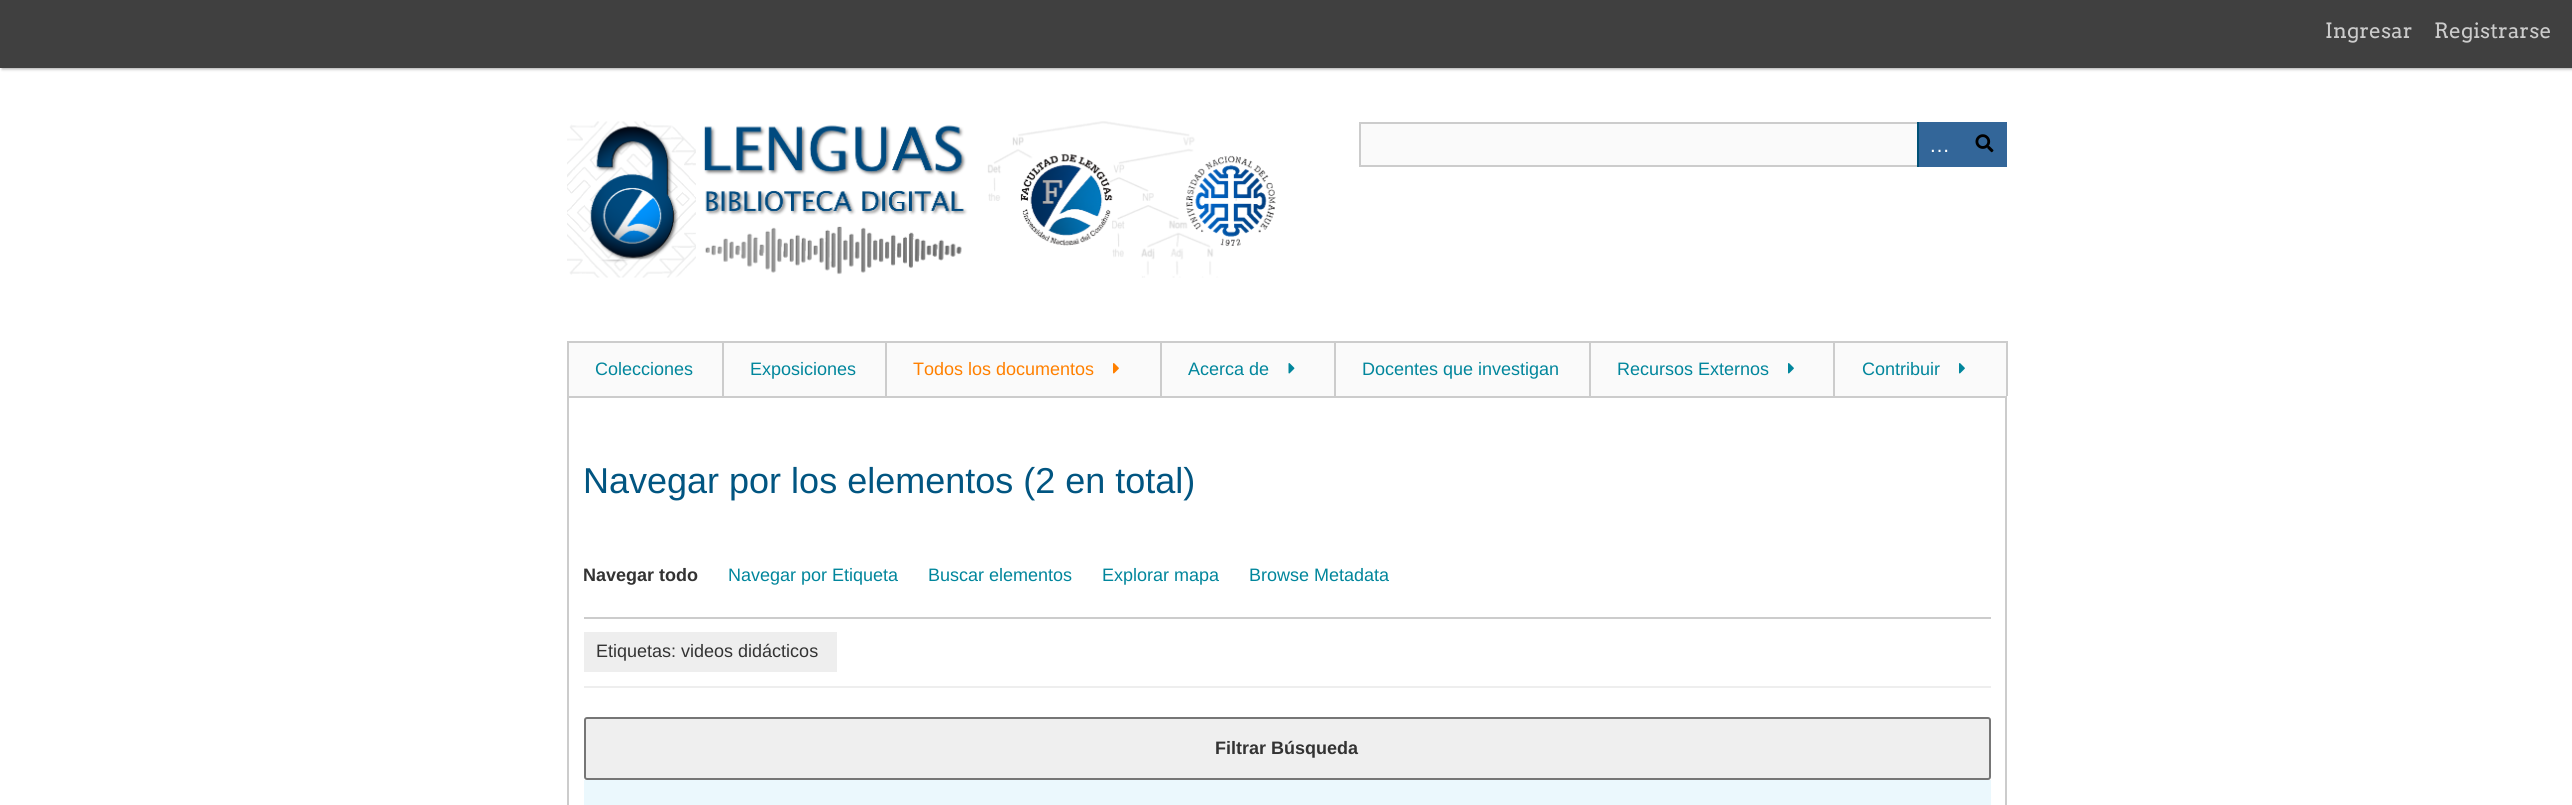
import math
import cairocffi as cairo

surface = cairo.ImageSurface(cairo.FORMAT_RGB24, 2572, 805)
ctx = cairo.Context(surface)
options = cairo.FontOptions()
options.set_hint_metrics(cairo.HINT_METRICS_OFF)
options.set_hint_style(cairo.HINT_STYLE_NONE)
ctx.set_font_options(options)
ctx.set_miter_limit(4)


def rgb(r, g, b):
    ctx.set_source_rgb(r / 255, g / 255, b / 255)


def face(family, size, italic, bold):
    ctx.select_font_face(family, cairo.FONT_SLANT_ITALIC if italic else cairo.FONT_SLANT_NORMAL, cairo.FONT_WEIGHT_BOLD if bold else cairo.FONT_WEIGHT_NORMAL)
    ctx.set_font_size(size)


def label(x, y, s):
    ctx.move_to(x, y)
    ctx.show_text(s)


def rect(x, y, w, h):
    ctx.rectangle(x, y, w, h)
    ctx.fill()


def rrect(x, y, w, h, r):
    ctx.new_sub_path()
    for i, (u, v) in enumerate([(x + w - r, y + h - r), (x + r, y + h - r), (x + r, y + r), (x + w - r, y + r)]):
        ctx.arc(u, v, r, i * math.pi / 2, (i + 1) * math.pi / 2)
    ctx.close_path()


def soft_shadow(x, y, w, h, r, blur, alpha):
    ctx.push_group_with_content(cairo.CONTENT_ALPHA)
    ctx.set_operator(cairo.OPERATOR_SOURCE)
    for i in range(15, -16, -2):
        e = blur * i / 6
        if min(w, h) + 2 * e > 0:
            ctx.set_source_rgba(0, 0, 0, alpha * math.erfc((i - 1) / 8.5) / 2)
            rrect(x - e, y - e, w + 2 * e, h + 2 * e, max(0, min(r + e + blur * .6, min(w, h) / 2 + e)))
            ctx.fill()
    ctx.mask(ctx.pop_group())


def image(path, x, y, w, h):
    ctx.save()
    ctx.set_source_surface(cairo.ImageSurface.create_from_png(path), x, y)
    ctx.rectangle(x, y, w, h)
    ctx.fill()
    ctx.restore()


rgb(255, 255, 255)
ctx.paint()
rgb(0, 0, 0)
soft_shadow(2, 2, 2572, 67, 0, 1.5, 0.35)
rgb(64, 64, 64)
rect(0, 0, 2572, 68)
face('Arvo', 21, 0, 0)
rgb(204, 204, 204)
label(2325, 38, 'Ingresar')
label(2434, 38, 'Registrarse')
image('image0.png', 567, 121, 709, 157)
rgb(250, 250, 250)
rect(1361, 124, 556, 41)
ctx.rectangle(1360, 123, 646, 43)
rgb(204, 204, 204)
ctx.stroke()
rgb(51, 102, 153)
rect(1919, 122, 88, 45)
rgb(0, 81, 119)
rect(1917, 122, 2, 45)
face('Liberation Sans', 21, 0, 0)
rgb(255, 255, 255)
label(1929, 152, '…')
image('image1.png', 1975, 134, 19, 19)
rgb(204, 204, 204)
rect(2006, 341, 2, 55)
rgb(250, 250, 250)
rect(569, 343, 153, 53)
rgb(204, 204, 204)
rect(567, 341, 318, 2)
rect(567, 341, 2, 55)
face('Liberation Sans', 18, 0, 0)
rgb(1, 134, 156)
label(595, 375, 'Colecciones')
rgb(250, 250, 250)
rect(724, 343, 161, 53)
rgb(204, 204, 204)
rect(722, 341, 2, 55)
rgb(1, 134, 156)
label(750, 375, 'Exposiciones')
rgb(250, 250, 250)
rect(887, 343, 273, 53)
rgb(204, 204, 204)
rect(885, 341, 1121, 2)
rect(885, 341, 2, 55)
rgb(255, 128, 0)
label(913, 375, 'Todos los documentos')
image('image2.png', 1113, 363, 6, 11)
rgb(250, 250, 250)
rect(1162, 343, 172, 53)
rgb(204, 204, 204)
rect(1160, 341, 2, 55)
rgb(1, 134, 156)
label(1188, 375, 'Acerca de')
image('image3.png', 1288, 363, 7, 11)
rgb(250, 250, 250)
rect(1336, 343, 253, 53)
rgb(204, 204, 204)
rect(1334, 341, 2, 55)
rgb(1, 134, 156)
label(1362, 375, 'Docentes que investigan')
rgb(250, 250, 250)
rect(1591, 343, 242, 53)
rgb(204, 204, 204)
rect(1589, 341, 2, 55)
rgb(1, 134, 156)
label(1617, 375, 'Recursos Externos')
image('image4.png', 1788, 363, 6, 11)
rgb(250, 250, 250)
rect(1835, 343, 171, 53)
rgb(204, 204, 204)
rect(1833, 341, 2, 55)
rgb(1, 134, 156)
label(1862, 375, 'Contribuir')
image('image4.png', 1959, 363, 6, 11)
ctx.rectangle(568, 397, 1438, 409)
rgb(204, 204, 204)
ctx.stroke()
face('Liberation Sans', 36, 0, 0)
rgb(1, 85, 129)
label(583, 493, 'Navegar por los elementos (2 en total)')
rgb(204, 204, 204)
rect(584, 617, 1407, 2)
face('Liberation Sans', 18, 0, 1)
rgb(51, 51, 51)
label(583, 581, 'Navegar todo')
face('Liberation Sans', 18, 0, 0)
rgb(1, 134, 156)
label(728, 581, 'Navegar por Etiqueta')
label(928, 581, 'Buscar elementos')
label(1102, 581, 'Explorar mapa')
label(1249, 581, 'Browse Metadata')
rgb(238, 238, 238)
rect(584, 686, 1407, 2)
rect(584, 632, 253, 40)
rgb(51, 51, 51)
label(596, 657, 'Etiquetas: videos didácticos')
rgb(239, 239, 239)
rrect(585, 718, 1405, 61, 2)
ctx.fill_preserve()
rgb(118, 118, 118)
ctx.stroke()
face('Liberation Sans', 18, 0, 1)
rgb(51, 51, 51)
label(1215, 754, 'Filtrar Búsqueda')
rgb(235, 248, 253)
rect(584, 780, 1407, 25)
surface.write_to_png('render.png')
